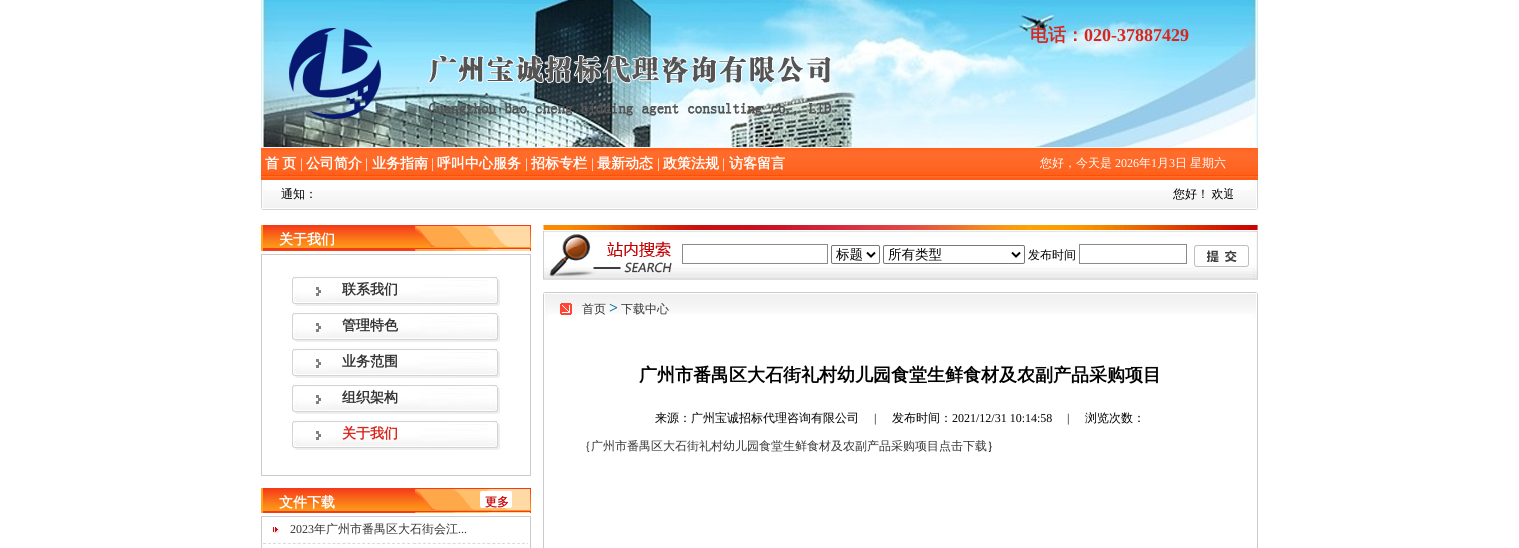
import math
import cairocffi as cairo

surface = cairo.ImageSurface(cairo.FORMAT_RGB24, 1519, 548)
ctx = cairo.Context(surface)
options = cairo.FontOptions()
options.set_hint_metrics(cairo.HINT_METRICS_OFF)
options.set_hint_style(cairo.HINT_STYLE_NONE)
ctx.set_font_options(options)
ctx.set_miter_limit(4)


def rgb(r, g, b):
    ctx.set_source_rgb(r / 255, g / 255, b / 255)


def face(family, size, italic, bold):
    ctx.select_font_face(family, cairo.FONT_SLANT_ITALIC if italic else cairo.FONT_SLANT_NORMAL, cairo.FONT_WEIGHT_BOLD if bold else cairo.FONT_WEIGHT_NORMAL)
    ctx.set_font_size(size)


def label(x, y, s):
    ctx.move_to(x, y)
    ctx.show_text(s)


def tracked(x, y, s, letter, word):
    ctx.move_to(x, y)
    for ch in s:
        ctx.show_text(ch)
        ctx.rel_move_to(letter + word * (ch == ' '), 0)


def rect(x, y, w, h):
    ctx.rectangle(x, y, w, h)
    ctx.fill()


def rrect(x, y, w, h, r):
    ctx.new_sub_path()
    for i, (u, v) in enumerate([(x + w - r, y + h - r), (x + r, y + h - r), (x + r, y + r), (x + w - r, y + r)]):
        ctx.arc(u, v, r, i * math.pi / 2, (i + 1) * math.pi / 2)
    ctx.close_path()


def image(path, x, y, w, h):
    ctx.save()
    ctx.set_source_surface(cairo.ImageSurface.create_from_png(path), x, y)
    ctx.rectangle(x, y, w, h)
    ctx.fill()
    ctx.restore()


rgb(255, 255, 255)
ctx.paint()
image('image0.png', 261, 0, 997, 147)
image('image1.png', 289, 28, 92, 91)
face('WenQuanYi Zen Hei', 18, 0, 1)
rgb(218, 37, 28)
label(1030, 41, '电话：')
face('Liberation Serif', 18, 0, 1)
label(1084, 41, '020-37887429')
image('image2.png', 428, 54, 404, 62)
image('image3.png', 261, 147, 997, 33)
face('WenQuanYi Zen Hei', 14, 0, 1)
rgb(255, 255, 255)
tracked(265, 168, '首 页', 0, -1)
face('Liberation Serif', 14, 0, 0)
label(300, 168, '|')
face('WenQuanYi Zen Hei', 14, 0, 1)
label(306, 168, '公司简介')
face('Liberation Serif', 14, 0, 0)
label(365, 168, '|')
face('WenQuanYi Zen Hei', 14, 0, 1)
label(372, 168, '业务指南')
face('Liberation Serif', 14, 0, 0)
label(431, 168, '|')
face('WenQuanYi Zen Hei', 14, 0, 1)
label(437, 168, '呼叫中心服务')
face('Liberation Serif', 14, 0, 0)
label(525, 168, '|')
face('WenQuanYi Zen Hei', 14, 0, 1)
label(531, 168, '招标专栏')
face('Liberation Serif', 14, 0, 0)
label(591, 168, '|')
face('WenQuanYi Zen Hei', 14, 0, 1)
label(597, 168, '最新动态')
face('Liberation Serif', 14, 0, 0)
label(657, 168, '|')
face('WenQuanYi Zen Hei', 14, 0, 1)
label(663, 168, '政策法规')
face('Liberation Serif', 14, 0, 0)
label(722, 168, '|')
face('WenQuanYi Zen Hei', 14, 0, 1)
label(729, 168, '访客留言')
face('WenQuanYi Zen Hei Medium', 12, 0, 0)
label(1040, 167, '您好，今天是')
face('Liberation Serif', 12, 0, 0)
label(1115, 167, '2026')
face('WenQuanYi Zen Hei Medium', 12, 0, 0)
label(1139, 167, '年')
face('Liberation Serif', 12, 0, 0)
label(1151, 167, '1')
face('WenQuanYi Zen Hei Medium', 12, 0, 0)
label(1157, 167, '月')
face('Liberation Serif', 12, 0, 0)
label(1169, 167, '3')
face('WenQuanYi Zen Hei Medium', 12, 0, 0)
label(1175, 167, '日')
label(1190, 167, '星期六')
image('image4.png', 261, 180, 4, 30)
image('image5.png', 265, 190, 988, 20)
rgb(0, 0, 0)
label(281, 198, '通知：')
ctx.save()
ctx.rectangle(333, 184, 900, 22)
ctx.clip()
tracked(1173, 198, '您好！ 欢迎', 0, -1)
ctx.restore()
image('image6.png', 1253, 180, 5, 30)
image('image7.png', 261, 225, 270, 26)
face('WenQuanYi Zen Hei', 14, 0, 1)
rgb(255, 255, 255)
label(279, 244, '关于我们')
rgb(203, 203, 203)
rect(261, 254, 270, 1)
rect(261, 255, 1, 220)
image('image8.png', 292, 275, 208, 31)
rgb(51, 51, 51)
label(342, 294, '联系我们')
image('image8.png', 292, 311, 208, 31)
label(342, 330, '管理特色')
image('image8.png', 292, 347, 208, 31)
label(342, 366, '业务范围')
image('image8.png', 292, 383, 208, 31)
label(342, 402, '组织架构')
image('image8.png', 292, 419, 208, 31)
rgb(218, 37, 28)
label(342, 438, '关于我们')
rgb(203, 203, 203)
rect(530, 255, 1, 220)
rect(261, 475, 270, 1)
image('image9.png', 261, 488, 270, 25)
rgb(255, 255, 255)
label(279, 507, '文件下载')
face('WenQuanYi Zen Hei', 12, 0, 1)
rgb(201, 16, 16)
label(485, 506, '更多')
rgb(203, 203, 203)
rect(261, 516, 270, 1)
rect(261, 517, 1, 31)
image('image10.png', 272, 527, 8, 7)
face('Liberation Serif', 12, 0, 0)
rgb(51, 51, 51)
label(290, 533, '2023')
face('WenQuanYi Zen Hei Medium', 12, 0, 0)
label(314, 533, '年广州市番禺区大石街会江')
face('Liberation Serif', 12, 0, 0)
label(458, 533, '...')
image('image11.png', 263, 542, 265, 3)
rgb(203, 203, 203)
rect(530, 517, 1, 31)
image('image12.png', 543, 225, 715, 5)
image('image13.png', 543, 231, 132, 49)
image('image14.png', 675, 231, 578, 49)
ctx.rectangle(682.5, 244.5, 145, 19)
rgb(139, 138, 138)
ctx.set_line_width(1)
ctx.stroke()
rrect(831.5, 245.5, 48, 18, 1.5)
rgb(118, 118, 118)
ctx.stroke()
ctx.new_path()
ctx.move_to(867, 252.5)
ctx.line_to(871, 256.5)
ctx.line_to(875, 252.5)
rgb(0, 0, 0)
ctx.set_line_width(2)
ctx.stroke()
face('WenQuanYi Zen Hei Medium', 13.5, 0, 0)
label(836, 259, '标题')
rrect(883.5, 245.5, 141, 18, 1.5)
rgb(118, 118, 118)
ctx.set_line_width(1)
ctx.stroke()
ctx.new_path()
ctx.move_to(1012, 252.5)
ctx.line_to(1016, 256.5)
ctx.line_to(1020, 252.5)
rgb(0, 0, 0)
ctx.set_line_width(2)
ctx.stroke()
label(888, 259, '所有类型')
face('WenQuanYi Zen Hei Medium', 12, 0, 0)
label(1028, 259, '发布时间')
ctx.rectangle(1079.5, 244.5, 107, 19)
rgb(139, 138, 138)
ctx.set_line_width(1)
ctx.stroke()
image('image15.png', 1194, 245, 55, 22)
image('image16.png', 1253, 231, 5, 49)
image('image17.png', 543, 292, 5, 34)
image('image18.png', 548, 292, 705, 22)
image('image19.png', 560, 303, 12, 12)
rgb(51, 51, 51)
label(582, 313, '首页')
face('Liberation Serif', 16, 0, 1)
rgb(24, 115, 163)
label(609, 313, '>')
face('WenQuanYi Zen Hei Medium', 12, 0, 0)
rgb(51, 51, 51)
label(621, 313, '下载中心')
image('image20.png', 1253, 292, 5, 34)
rgb(203, 203, 203)
rect(543, 326, 1, 222)
face('WenQuanYi Zen Hei', 18, 0, 1)
rgb(0, 0, 0)
label(639, 381, '广州市番禺区大石街礼村幼儿园食堂生鲜食材及农副产品采购项目')
face('WenQuanYi Zen Hei Medium', 12, 0, 0)
label(655, 422, '来源：广州宝诚招标代理咨询有限公司')
face('Liberation Serif', 12, 0, 0)
label(874, 422, '|')
face('WenQuanYi Zen Hei Medium', 12, 0, 0)
label(892, 422, '发布时间：')
face('Liberation Serif', 12, 0, 0)
label(952, 422, '2021/12/31 10:14:58')
label(1067, 422, '|')
face('WenQuanYi Zen Hei Medium', 12, 0, 0)
label(1085, 422, '浏览次数：')
rgb(51, 51, 51)
label(579, 450, '｛广州市番禺区大石街礼村幼儿园食堂生鲜食材及农副产品采购项目点击下载')
rgb(0, 0, 0)
label(987, 450, '｝')
rgb(203, 203, 203)
rect(1257, 326, 1, 222)
surface.write_to_png('render.png')
